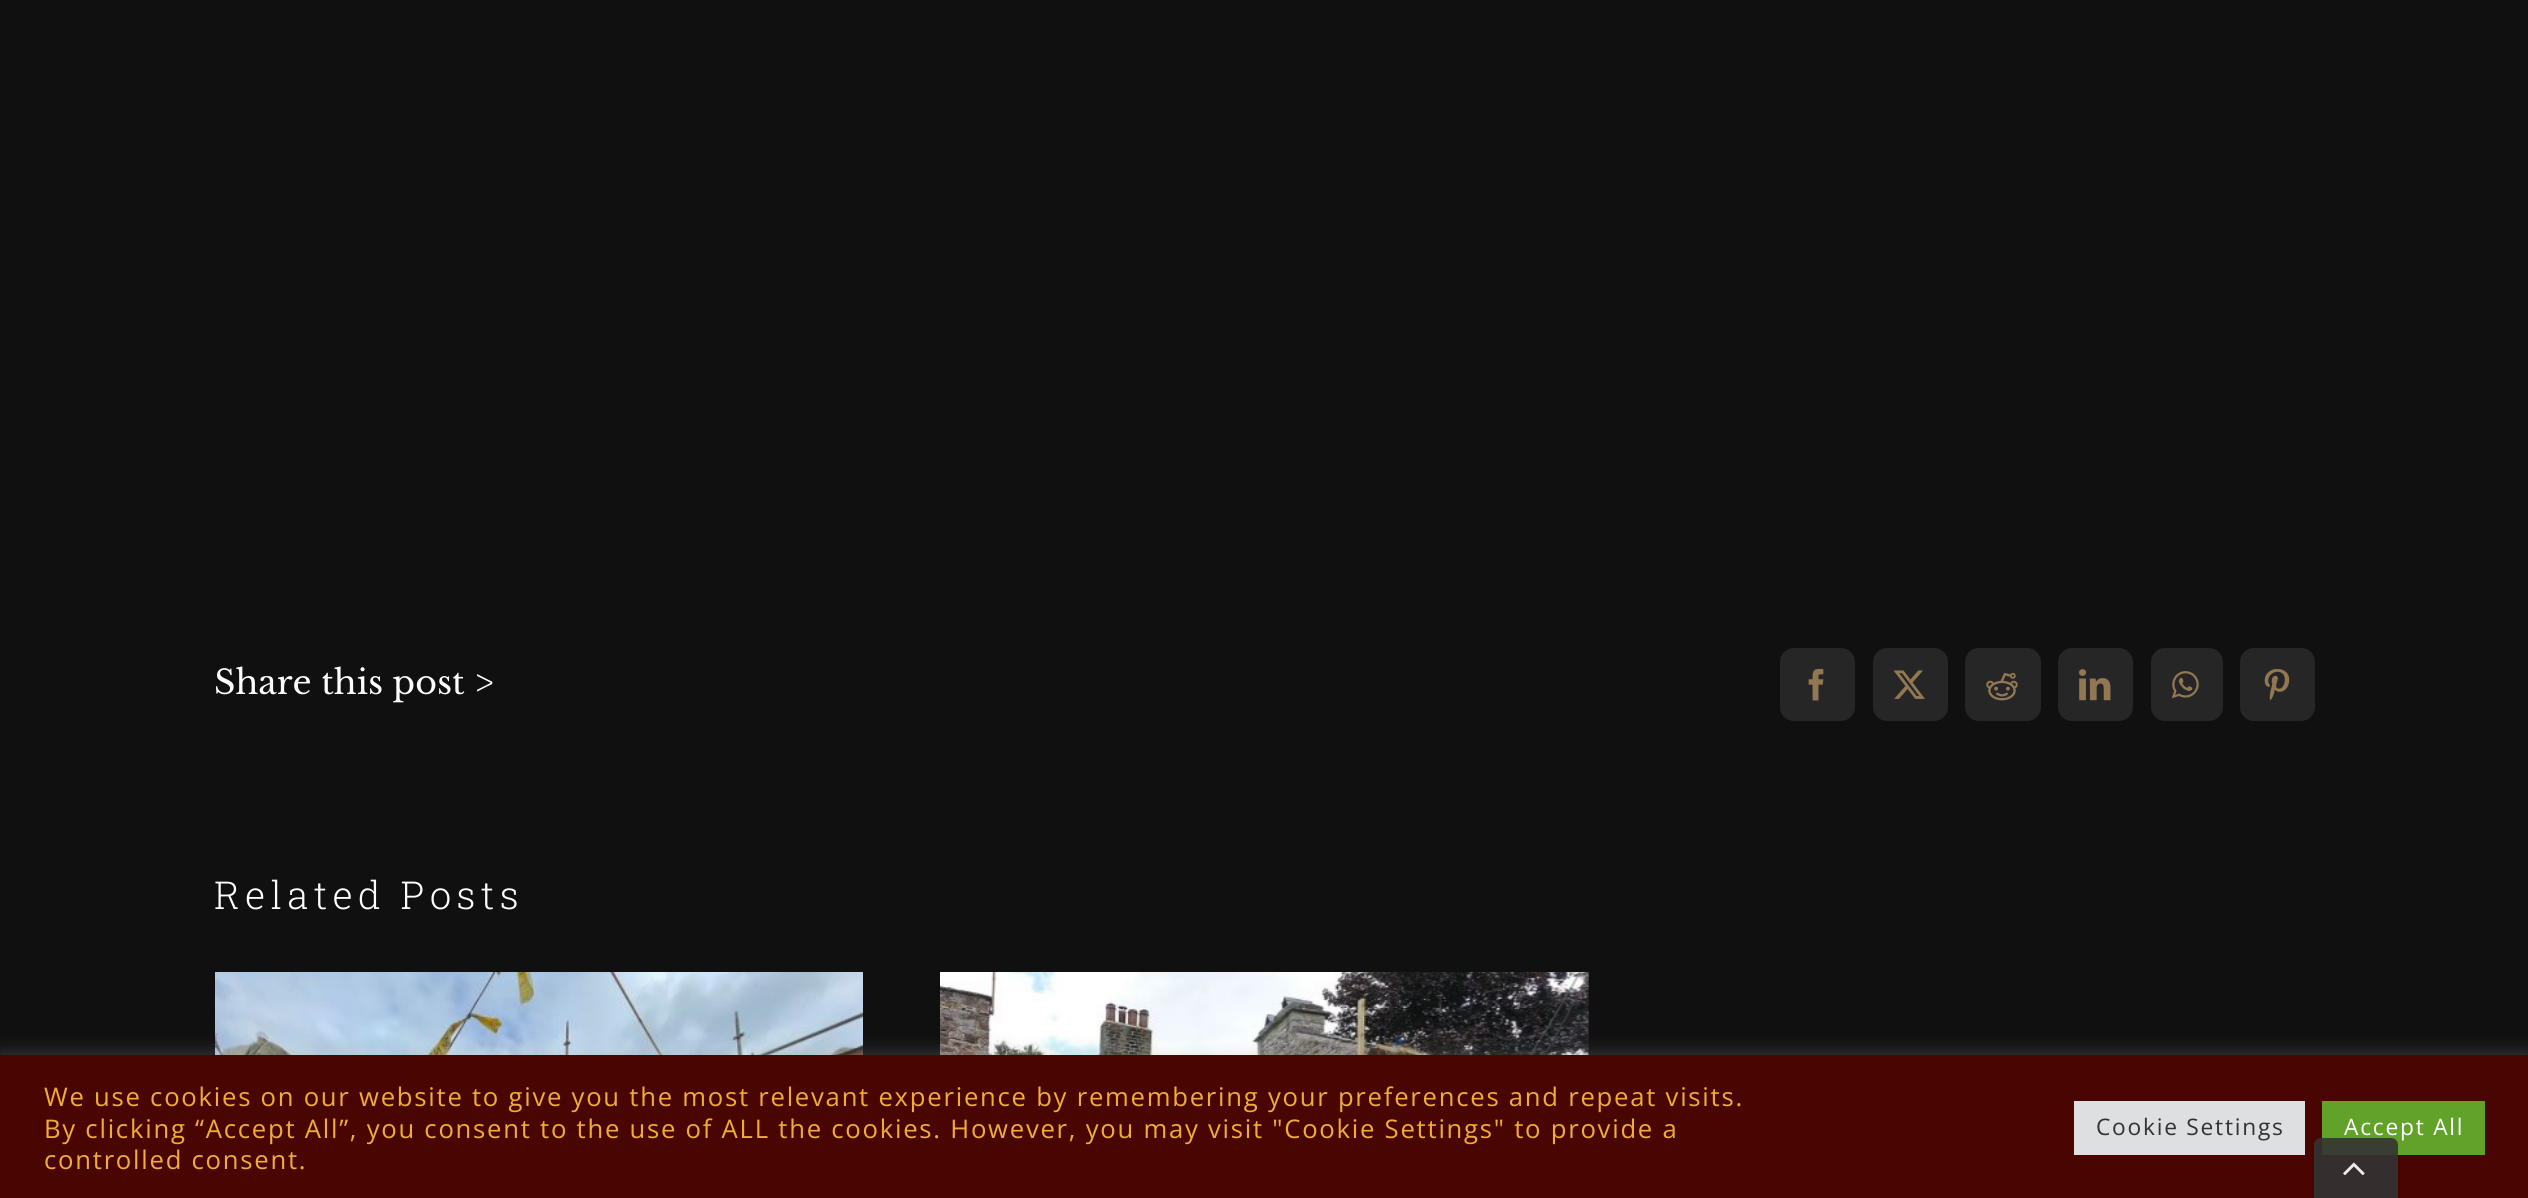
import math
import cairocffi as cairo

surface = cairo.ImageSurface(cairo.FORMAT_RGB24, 2528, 1198)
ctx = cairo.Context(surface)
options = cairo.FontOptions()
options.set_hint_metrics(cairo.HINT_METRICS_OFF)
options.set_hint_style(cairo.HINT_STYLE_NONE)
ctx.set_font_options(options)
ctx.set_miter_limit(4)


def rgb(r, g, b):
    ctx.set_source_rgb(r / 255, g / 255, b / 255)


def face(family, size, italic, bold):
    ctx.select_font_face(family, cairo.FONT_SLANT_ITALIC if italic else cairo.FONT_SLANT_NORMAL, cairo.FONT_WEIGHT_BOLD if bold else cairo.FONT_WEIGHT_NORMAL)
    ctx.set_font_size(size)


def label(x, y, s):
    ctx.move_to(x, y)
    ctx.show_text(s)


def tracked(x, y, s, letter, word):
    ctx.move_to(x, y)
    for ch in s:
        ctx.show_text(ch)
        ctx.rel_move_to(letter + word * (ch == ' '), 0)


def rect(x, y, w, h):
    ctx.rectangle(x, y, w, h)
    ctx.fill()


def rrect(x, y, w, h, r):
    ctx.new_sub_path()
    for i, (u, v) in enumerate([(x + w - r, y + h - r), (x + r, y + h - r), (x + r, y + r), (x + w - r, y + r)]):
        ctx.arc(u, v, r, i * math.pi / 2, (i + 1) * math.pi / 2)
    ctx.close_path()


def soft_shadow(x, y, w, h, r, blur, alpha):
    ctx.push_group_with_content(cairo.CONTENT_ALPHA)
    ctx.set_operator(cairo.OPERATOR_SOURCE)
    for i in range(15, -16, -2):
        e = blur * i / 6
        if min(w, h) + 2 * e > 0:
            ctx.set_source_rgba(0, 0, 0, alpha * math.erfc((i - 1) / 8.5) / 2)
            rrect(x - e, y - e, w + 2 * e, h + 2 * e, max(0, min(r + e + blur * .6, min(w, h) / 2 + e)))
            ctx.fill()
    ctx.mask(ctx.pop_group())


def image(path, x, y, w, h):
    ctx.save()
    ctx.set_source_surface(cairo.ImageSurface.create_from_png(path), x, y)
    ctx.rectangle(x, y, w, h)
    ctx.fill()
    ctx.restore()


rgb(16, 16, 16)
ctx.paint()
face('Libre Baskerville', 33.25, 0, 0)
rgb(255, 255, 255)
label(214, 694, 'Share this post >')
rgb(38, 38, 38)
rrect(1781, 649, 73, 71, 13)
ctx.fill_preserve()
ctx.stroke()
image('image0.png', 1808, 668, 16, 33)
rrect(1874, 649, 73, 71, 13)
ctx.fill_preserve()
ctx.stroke()
image('image1.png', 1893, 670, 32, 29)
rrect(1966, 649, 74, 71, 13)
ctx.fill_preserve()
ctx.stroke()
image('image2.png', 1986, 672, 32, 29)
rrect(2059, 649, 73, 71, 13)
ctx.fill_preserve()
ctx.stroke()
image('image3.png', 2079, 669, 32, 32)
rrect(2152, 649, 70, 71, 13)
ctx.fill_preserve()
ctx.stroke()
image('image4.png', 2171, 671, 28, 28)
rrect(2241, 649, 73, 71, 13)
ctx.fill_preserve()
ctx.stroke()
image('image5.png', 2264, 668, 26, 33)
face('Roboto Slab Light', 38.5, 0, 0)
rgb(255, 255, 255)
tracked(214, 909, 'Related Posts', 5.25, 0)
image('image6.png', 215, 972, 648, 83)
image('image7.png', 940, 972, 649, 83)
rgb(172, 171, 171)
soft_shadow(0, 1054, 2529, 143, 0, 9, 0.3)
rgb(73, 5, 2)
rect(0, 1055, 2528, 143)
face('Open Sans', 25.67, 0, 0)
rgb(239, 172, 55)
tracked(44, 1106, 'We use cookies on our website to give you the most relevant experience by remembering your preferences and repeat visits.', 1.75, 0)
tracked(44, 1138, 'By clicking “Accept All”, you consent to the use of ALL the cookies. However, you may visit "Cookie Settings" to provide a', 1.75, 0)
tracked(44, 1169, 'controlled consent.', 1.75, 0)
rgb(222, 223, 224)
rect(2074, 1101, 231, 54)
face('Open Sans', 22.75, 0, 0)
rgb(51, 51, 51)
tracked(2096, 1135, 'Cookie Settings', 1.75, 0)
rgb(97, 162, 41)
rect(2322, 1101, 163, 54)
rgb(255, 255, 255)
tracked(2344, 1135, 'Accept All', 1.75, 0)
ctx.set_source_rgba(0.2, 0.2, 0.2, 0.9)
ctx.new_path()
ctx.move_to(2321, 1138)
ctx.line_to(2391, 1138)
ctx.curve_to(2395, 1138, 2398, 1141, 2398, 1145)
ctx.line_to(2398, 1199)
ctx.line_to(2314, 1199)
ctx.line_to(2314, 1145)
ctx.curve_to(2314, 1141, 2317, 1138, 2321, 1138)
ctx.close_path()
ctx.fill()
image('image8.png', 2343, 1162, 22, 14)
surface.write_to_png('render.png')
